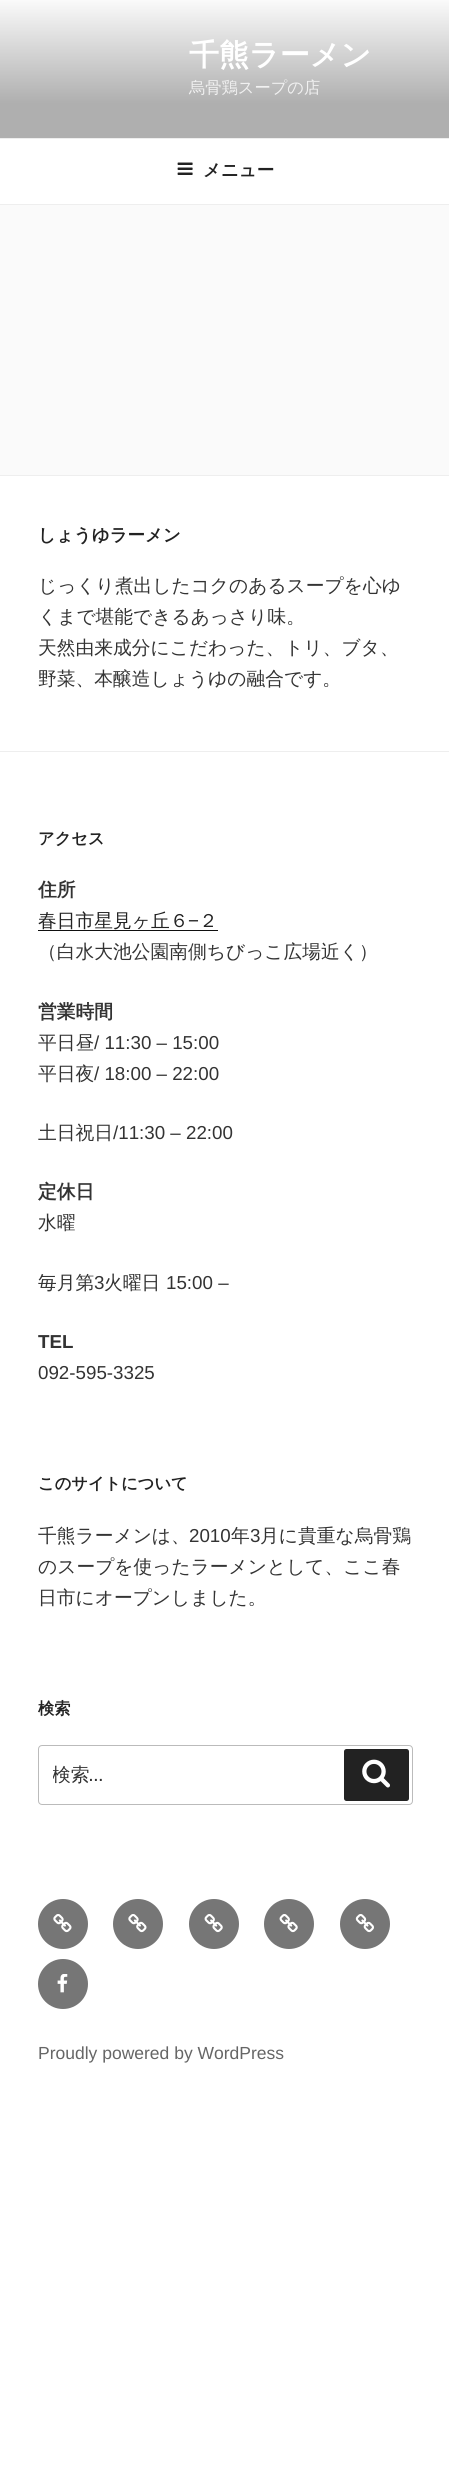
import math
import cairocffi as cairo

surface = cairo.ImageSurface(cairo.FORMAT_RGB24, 449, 2472)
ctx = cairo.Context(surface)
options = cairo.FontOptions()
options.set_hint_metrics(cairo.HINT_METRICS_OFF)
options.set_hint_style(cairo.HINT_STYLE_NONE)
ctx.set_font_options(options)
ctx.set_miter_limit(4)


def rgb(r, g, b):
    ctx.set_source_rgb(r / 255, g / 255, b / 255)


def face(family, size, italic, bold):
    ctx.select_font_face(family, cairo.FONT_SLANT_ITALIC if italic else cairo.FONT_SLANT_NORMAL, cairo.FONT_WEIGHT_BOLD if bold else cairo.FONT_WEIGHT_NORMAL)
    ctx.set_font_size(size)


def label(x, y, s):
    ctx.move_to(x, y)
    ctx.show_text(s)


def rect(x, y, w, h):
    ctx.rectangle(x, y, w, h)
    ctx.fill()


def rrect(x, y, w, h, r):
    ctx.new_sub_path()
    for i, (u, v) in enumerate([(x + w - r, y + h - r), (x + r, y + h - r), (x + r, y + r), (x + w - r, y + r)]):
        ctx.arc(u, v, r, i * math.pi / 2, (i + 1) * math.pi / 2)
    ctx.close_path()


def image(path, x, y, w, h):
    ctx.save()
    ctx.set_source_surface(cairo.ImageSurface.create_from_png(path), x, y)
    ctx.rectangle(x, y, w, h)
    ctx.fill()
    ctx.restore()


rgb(255, 255, 255)
ctx.paint()
gradient = cairo.LinearGradient(225, 0, 225, 138)
gradient.add_color_stop_rgba(0, 0.98, 0.98, 0.98, 1)
gradient.add_color_stop_rgba(0.75, 0.686, 0.686, 0.686, 1)
gradient.add_color_stop_rgba(1, 0.686, 0.686, 0.686, 1)
ctx.set_source(gradient)
rect(0, 0, 449, 138)
face('WenQuanYi Zen Hei', 30, 0, 1)
rgb(255, 255, 255)
label(189, 65, '千熊ラーメン')
face('WenQuanYi Zen Hei Medium', 16.25, 0, 0)
rgb(241, 241, 241)
label(189, 93, '烏骨鶏スープの店')
rgb(238, 238, 238)
rect(0, 138, 449, 1)
rect(0, 204, 449, 1)
image('image0.png', 177, 162, 16, 13)
face('WenQuanYi Zen Hei', 17.5, 0, 1)
rgb(34, 34, 34)
label(203, 176, 'メニュー')
rgb(250, 250, 250)
rect(0, 205, 449, 270)
rgb(238, 238, 238)
rect(0, 475, 449, 1)
rgb(34, 34, 34)
label(38, 541, 'しょうゆラーメン')
face('WenQuanYi Zen Hei Medium', 18.75, 0, 0)
rgb(51, 51, 51)
label(38, 592, 'じっくり煮出したコクのあるスープを心ゆ')
label(38, 623, 'くまで堪能できるあっさり味。')
label(38, 654, '天然由来成分にこだわった、トリ、ブタ、')
label(38, 685, '野菜、本醸造しょうゆの融合です。')
rgb(238, 238, 238)
rect(0, 751, 449, 1)
face('WenQuanYi Zen Hei', 16.25, 0, 1)
rgb(34, 34, 34)
label(38, 844, 'アクセス')
face('WenQuanYi Zen Hei', 18.75, 0, 1)
rgb(51, 51, 51)
label(38, 896, '住所')
face('WenQuanYi Zen Hei Medium', 18.75, 0, 0)
rgb(34, 34, 34)
label(38, 927, '春日市星見ヶ丘６')
face('Liberation Sans', 18.75, 0, 0)
label(188, 927, '−')
rgb(15, 15, 15)
rect(38, 930, 180, 1)
face('WenQuanYi Zen Hei Medium', 18.75, 0, 0)
rgb(34, 34, 34)
label(199, 927, '２')
rgb(51, 51, 51)
label(38, 958, '（白水大池公園南側ちびっこ広場近く）')
face('WenQuanYi Zen Hei', 18.75, 0, 1)
label(38, 1018, '営業時間')
face('WenQuanYi Zen Hei Medium', 18.75, 0, 0)
label(38, 1049, '平日昼')
face('Liberation Sans', 18.75, 0, 0)
label(94, 1049, '/ 11:30 – 15:00')
face('WenQuanYi Zen Hei Medium', 18.75, 0, 0)
label(38, 1080, '平日夜')
face('Liberation Sans', 18.75, 0, 0)
label(94, 1080, '/ 18:00 – 22:00')
face('WenQuanYi Zen Hei Medium', 18.75, 0, 0)
label(38, 1139, '土日祝日')
face('Liberation Sans', 18.75, 0, 0)
label(113, 1139, '/11:30 – 22:00')
face('WenQuanYi Zen Hei', 18.75, 0, 1)
label(38, 1198, '定休日')
face('WenQuanYi Zen Hei Medium', 18.75, 0, 0)
label(38, 1229, '水曜')
label(38, 1289, '毎月第')
face('Liberation Sans', 18.75, 0, 0)
label(94, 1289, '3')
face('WenQuanYi Zen Hei Medium', 18.75, 0, 0)
label(104, 1289, '火曜日')
face('Liberation Sans', 18.75, 0, 0)
label(166, 1289, '15:00 –')
face('Liberation Sans', 18.75, 0, 1)
label(38, 1348, 'TEL')
face('Liberation Sans', 18.75, 0, 0)
label(38, 1379, '092-595-3325')
face('WenQuanYi Zen Hei', 16.25, 0, 1)
rgb(34, 34, 34)
label(38, 1489, 'このサイトについて')
face('WenQuanYi Zen Hei Medium', 18.75, 0, 0)
rgb(51, 51, 51)
label(38, 1542, '千熊ラーメンは、')
face('Liberation Sans', 18.75, 0, 0)
label(189, 1542, '2010')
face('WenQuanYi Zen Hei Medium', 18.75, 0, 0)
label(231, 1542, '年')
face('Liberation Sans', 18.75, 0, 0)
label(250, 1542, '3')
face('WenQuanYi Zen Hei Medium', 18.75, 0, 0)
label(260, 1542, '月に貴重な烏骨鶏')
label(38, 1573, 'のスープを使ったラーメンとして、ここ春')
label(38, 1604, '日市にオープンしました。')
face('WenQuanYi Zen Hei', 16.25, 0, 1)
rgb(34, 34, 34)
label(38, 1714, '検索')
rrect(38.5, 1745.5, 374, 59, 3.5)
rgb(187, 187, 187)
ctx.set_line_width(1)
ctx.stroke()
ctx.save()
ctx.rectangle(53, 1764, 341, 24)
ctx.clip()
face('WenQuanYi Zen Hei Medium', 18.75, 0, 0)
rgb(51, 51, 51)
label(52, 1781, '検索')
ctx.restore()
face('Libre Franklin', 18.75, 0, 0)
rgb(51, 51, 51)
label(89, 1781, '…')
rgb(34, 34, 34)
rrect(344, 1749, 65, 52, 2.5)
ctx.fill()
image('image1.png', 362, 1759, 28, 29)
rgb(118, 118, 118)
ctx.arc(63, 1924, 25, 0, 2 * math.pi)
ctx.fill()
image('image2.png', 53, 1914, 19, 19)
ctx.arc(138, 1924, 25, 0, 2 * math.pi)
ctx.fill()
image('image2.png', 128, 1914, 19, 19)
ctx.arc(214, 1924, 25, 0, 2 * math.pi)
ctx.fill()
image('image3.png', 204, 1914, 19, 19)
ctx.arc(289, 1924, 25, 0, 2 * math.pi)
ctx.fill()
image('image3.png', 279, 1914, 19, 19)
ctx.arc(365, 1924, 25, 0, 2 * math.pi)
ctx.fill()
image('image4.png', 355, 1914, 19, 19)
ctx.arc(63, 1984, 25, 0, 2 * math.pi)
ctx.fill()
image('image5.png', 57, 1974, 11, 19)
face('Liberation Sans', 17.5, 0, 0)
rgb(102, 102, 102)
label(38, 2059, 'Proudly powered by WordPress')
surface.write_to_png('render.png')
